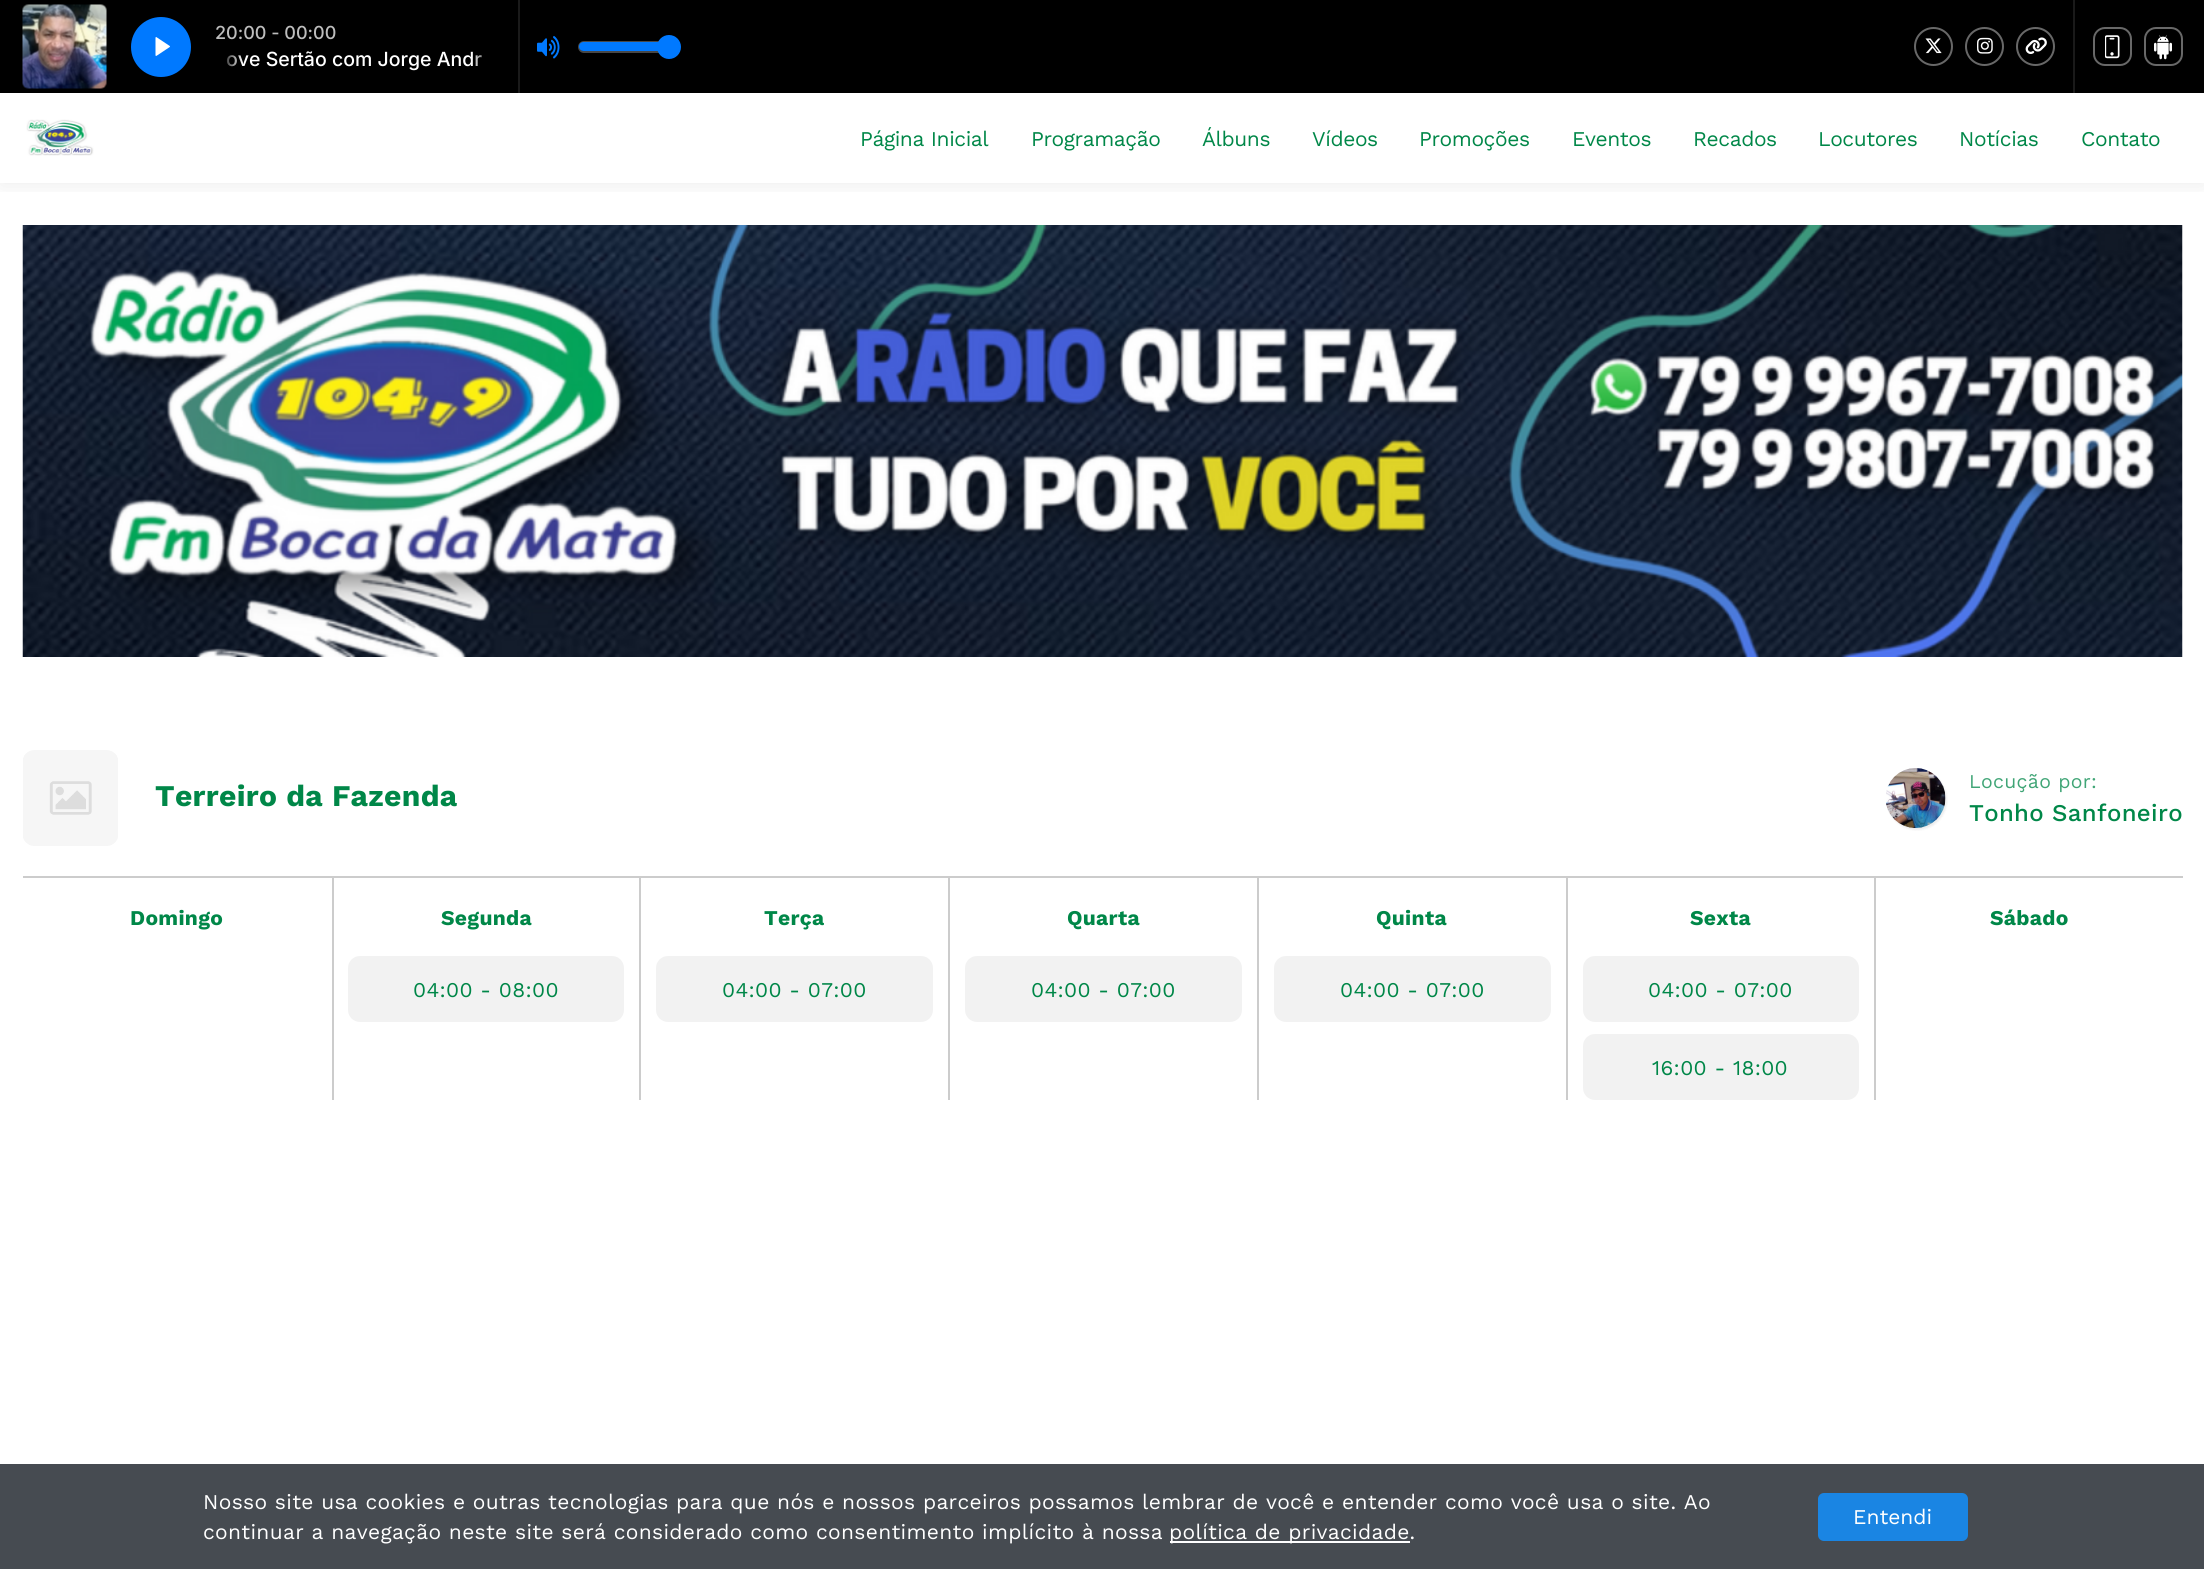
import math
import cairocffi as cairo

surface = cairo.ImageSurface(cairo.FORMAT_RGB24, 2204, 1569)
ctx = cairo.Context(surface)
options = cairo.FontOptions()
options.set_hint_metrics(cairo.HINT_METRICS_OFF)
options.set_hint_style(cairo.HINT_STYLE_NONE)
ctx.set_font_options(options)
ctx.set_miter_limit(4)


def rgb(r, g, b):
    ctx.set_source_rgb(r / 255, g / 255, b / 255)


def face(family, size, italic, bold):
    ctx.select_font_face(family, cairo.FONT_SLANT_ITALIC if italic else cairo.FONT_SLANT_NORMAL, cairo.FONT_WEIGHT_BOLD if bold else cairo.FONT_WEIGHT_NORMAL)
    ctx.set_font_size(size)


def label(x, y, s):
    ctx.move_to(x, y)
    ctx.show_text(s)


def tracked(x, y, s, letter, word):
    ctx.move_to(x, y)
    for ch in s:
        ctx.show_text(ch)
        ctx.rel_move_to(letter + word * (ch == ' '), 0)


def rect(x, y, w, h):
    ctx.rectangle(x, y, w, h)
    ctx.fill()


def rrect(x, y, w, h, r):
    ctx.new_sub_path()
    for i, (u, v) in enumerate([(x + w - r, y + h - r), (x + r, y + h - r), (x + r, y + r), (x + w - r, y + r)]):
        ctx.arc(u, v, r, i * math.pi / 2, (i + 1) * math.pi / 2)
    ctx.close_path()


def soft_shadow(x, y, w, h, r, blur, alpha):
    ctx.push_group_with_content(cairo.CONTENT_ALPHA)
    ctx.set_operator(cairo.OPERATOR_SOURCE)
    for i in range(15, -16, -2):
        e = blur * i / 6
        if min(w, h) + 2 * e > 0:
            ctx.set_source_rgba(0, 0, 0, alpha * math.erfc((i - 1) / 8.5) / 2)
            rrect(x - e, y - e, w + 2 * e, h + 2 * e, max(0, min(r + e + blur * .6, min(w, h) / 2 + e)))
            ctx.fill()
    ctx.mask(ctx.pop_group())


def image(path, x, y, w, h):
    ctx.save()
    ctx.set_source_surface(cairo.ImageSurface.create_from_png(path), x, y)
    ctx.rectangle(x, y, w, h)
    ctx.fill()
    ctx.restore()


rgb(255, 255, 255)
ctx.paint()
ctx.save()
ctx.rectangle(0, 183, 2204, 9)
ctx.clip()
rgb(0, 0, 0)
soft_shadow(0, 96, 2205, 90, 0, 10.5, 0.07)
ctx.restore()
rgb(0, 0, 0)
rect(0, 0, 2204, 93)
rgb(26, 26, 26)
rect(518, 0, 2, 93)
image('image0.png', 22, 4, 85, 85)
rgb(0, 121, 255)
ctx.arc(161, 47, 30, 0, 2 * math.pi)
ctx.fill()
image('image1.png', 155, 37, 15, 19)
face('Inter Medium', 18, 0, 0)
rgb(189, 189, 189)
label(215, 39, '20:00 - 00:00')
face('Inter Medium', 19.5, 0, 0)
rgb(255, 255, 255)
label(226, 66, 'ove Sertão com Jorge Andr')
gradient = cairo.LinearGradient(215, 59, 243, 59)
gradient.add_color_stop_rgba(0.2, 0, 0, 0, 1)
gradient.add_color_stop_rgba(1, 0, 0, 0, 0)
ctx.set_source(gradient)
rect(226, 55, 17, 12)
gradient = cairo.LinearGradient(500, 59, 471, 59)
gradient.add_color_stop_rgba(0.2, 0, 0, 0, 1)
gradient.add_color_stop_rgba(1, 0, 0, 0, 0)
ctx.set_source(gradient)
rect(472, 52, 9, 14)
image('image2.png', 537, 36, 23, 23)
rrect(579, 42, 91, 10, 5)
rgb(71, 71, 71)
ctx.stroke()
rgb(0, 121, 255)
rrect(579, 42, 90, 9, 4.5)
ctx.fill()
ctx.arc(669, 47, 11, 0, 2 * math.pi)
ctx.fill_preserve()
ctx.stroke()
ctx.arc(1933.5, 46.5, 18.5, 0, 2 * math.pi)
rgb(104, 104, 104)
ctx.stroke()
image('image3.png', 1925, 38, 17, 16)
ctx.arc(1984.5, 46.5, 18.5, 0, 2 * math.pi)
ctx.stroke()
image('image4.png', 1977, 37, 16, 17)
ctx.arc(2035.5, 46.5, 18.5, 0, 2 * math.pi)
ctx.stroke()
image('image5.png', 2025, 37, 22, 17)
rgb(26, 26, 26)
rect(2073, 0, 2, 93)
rrect(2094, 28, 37, 37, 11)
rgb(104, 104, 104)
ctx.stroke()
image('image6.png', 2105, 35, 15, 24)
rrect(2145, 28, 37, 37, 11)
ctx.stroke()
image('image7.png', 2154, 35, 18, 25)
image('image8.png', 26, 119, 68, 37)
face('Work Sans', 21, 0, 0)
rgb(0, 135, 72)
tracked(860, 146, 'Página Inicial', -0.4, 0)
tracked(1031, 146, 'Programação', -0.4, 0)
tracked(1202, 146, 'Álbuns', -0.4, 0)
tracked(1312, 146, 'Vídeos', -0.4, 0)
tracked(1419, 146, 'Promoções', -0.4, 0)
tracked(1572, 146, 'Eventos', -0.4, 0)
tracked(1693, 146, 'Recados', -0.4, 0)
tracked(1818, 146, 'Locutores', -0.4, 0)
tracked(1959, 146, 'Notícias', -0.4, 0)
tracked(2081, 146, 'Contato', -0.4, 0)
image('image9.png', 22, 225, 2161, 432)
image('image10.png', 23, 750, 95, 96)
face('Work Sans', 30, 0, 1)
tracked(155, 806, 'Terreiro da Fazenda', 0.32, 0)
rgb(0, 0, 0)
soft_shadow(1887, 770, 60, 60, 30, 1, 0.07)
image('image11.png', 1886, 768, 60, 60)
face('Work Sans', 19.5, 0, 0)
rgb(64, 165, 118)
tracked(1969, 788, 'Locução por:', 0.32, 0)
face('Work Sans Medium', 24, 0, 0)
rgb(0, 135, 72)
tracked(1969, 821, 'Tonho Sanfoneiro', 0.32, 0)
rgb(204, 204, 204)
rect(23, 876, 2160, 2)
face('Work Sans', 21, 0, 1)
rgb(0, 135, 72)
tracked(130, 925, 'Domingo', 0.32, 0)
rgb(204, 204, 204)
rect(332, 878, 2, 222)
rgb(0, 135, 72)
tracked(441, 925, 'Segunda', 0.32, 0)
rgb(242, 242, 242)
rrect(348, 956, 276, 66, 12)
ctx.fill()
face('Work Sans', 21, 0, 0)
rgb(0, 135, 72)
tracked(413, 997, '04:00 - 08:00', 0.32, 0)
rgb(204, 204, 204)
rect(639, 878, 2, 222)
face('Work Sans', 21, 0, 1)
rgb(0, 135, 72)
tracked(764, 925, 'Terça', 0.32, 0)
rgb(242, 242, 242)
rrect(656, 956, 277, 66, 12)
ctx.fill()
face('Work Sans', 21, 0, 0)
rgb(0, 135, 72)
tracked(722, 997, '04:00 - 07:00', 0.32, 0)
rgb(204, 204, 204)
rect(948, 878, 2, 222)
face('Work Sans', 21, 0, 1)
rgb(0, 135, 72)
tracked(1067, 925, 'Quarta', 0.32, 0)
rgb(242, 242, 242)
rrect(965, 956, 277, 66, 12)
ctx.fill()
face('Work Sans', 21, 0, 0)
rgb(0, 135, 72)
tracked(1031, 997, '04:00 - 07:00', 0.32, 0)
rgb(204, 204, 204)
rect(1257, 878, 2, 222)
face('Work Sans', 21, 0, 1)
rgb(0, 135, 72)
tracked(1376, 925, 'Quinta', 0.32, 0)
rgb(242, 242, 242)
rrect(1274, 956, 277, 66, 12)
ctx.fill()
face('Work Sans', 21, 0, 0)
rgb(0, 135, 72)
tracked(1340, 997, '04:00 - 07:00', 0.32, 0)
rgb(204, 204, 204)
rect(1566, 878, 2, 222)
face('Work Sans', 21, 0, 1)
rgb(0, 135, 72)
tracked(1690, 925, 'Sexta', 0.32, 0)
rgb(242, 242, 242)
rrect(1583, 956, 276, 66, 12)
ctx.fill()
face('Work Sans', 21, 0, 0)
rgb(0, 135, 72)
tracked(1648, 997, '04:00 - 07:00', 0.32, 0)
rgb(242, 242, 242)
rrect(1583, 1034, 276, 66, 12)
ctx.fill()
rgb(0, 135, 72)
tracked(1652, 1075, '16:00 - 18:00', 0.32, 0)
rgb(204, 204, 204)
rect(1874, 878, 2, 222)
face('Work Sans', 21, 0, 1)
rgb(0, 135, 72)
tracked(1990, 925, 'Sábado', 0.32, 0)
rgb(70, 75, 81)
rect(0, 1464, 2204, 105)
face('Work Sans', 21, 0, 0)
rgb(255, 255, 255)
tracked(203, 1509, 'Nosso site usa cookies e outras tecnologias para que nós e nossos parceiros possamos lembrar de você e entender como você usa o site. Ao', 0.32, 0)
tracked(203, 1539, 'continuar a navegação neste site será considerado como consentimento implícito à nossa', 0.32, 0)
rect(1170, 1541, 240, 2)
tracked(1169, 1539, 'política de privacidade.', 0.32, 0)
rgb(26, 133, 227)
rrect(1819, 1494, 148, 46, 5)
ctx.fill_preserve()
ctx.stroke()
rgb(255, 255, 255)
label(1853, 1524, 'Entendi')
surface.write_to_png('render.png')
